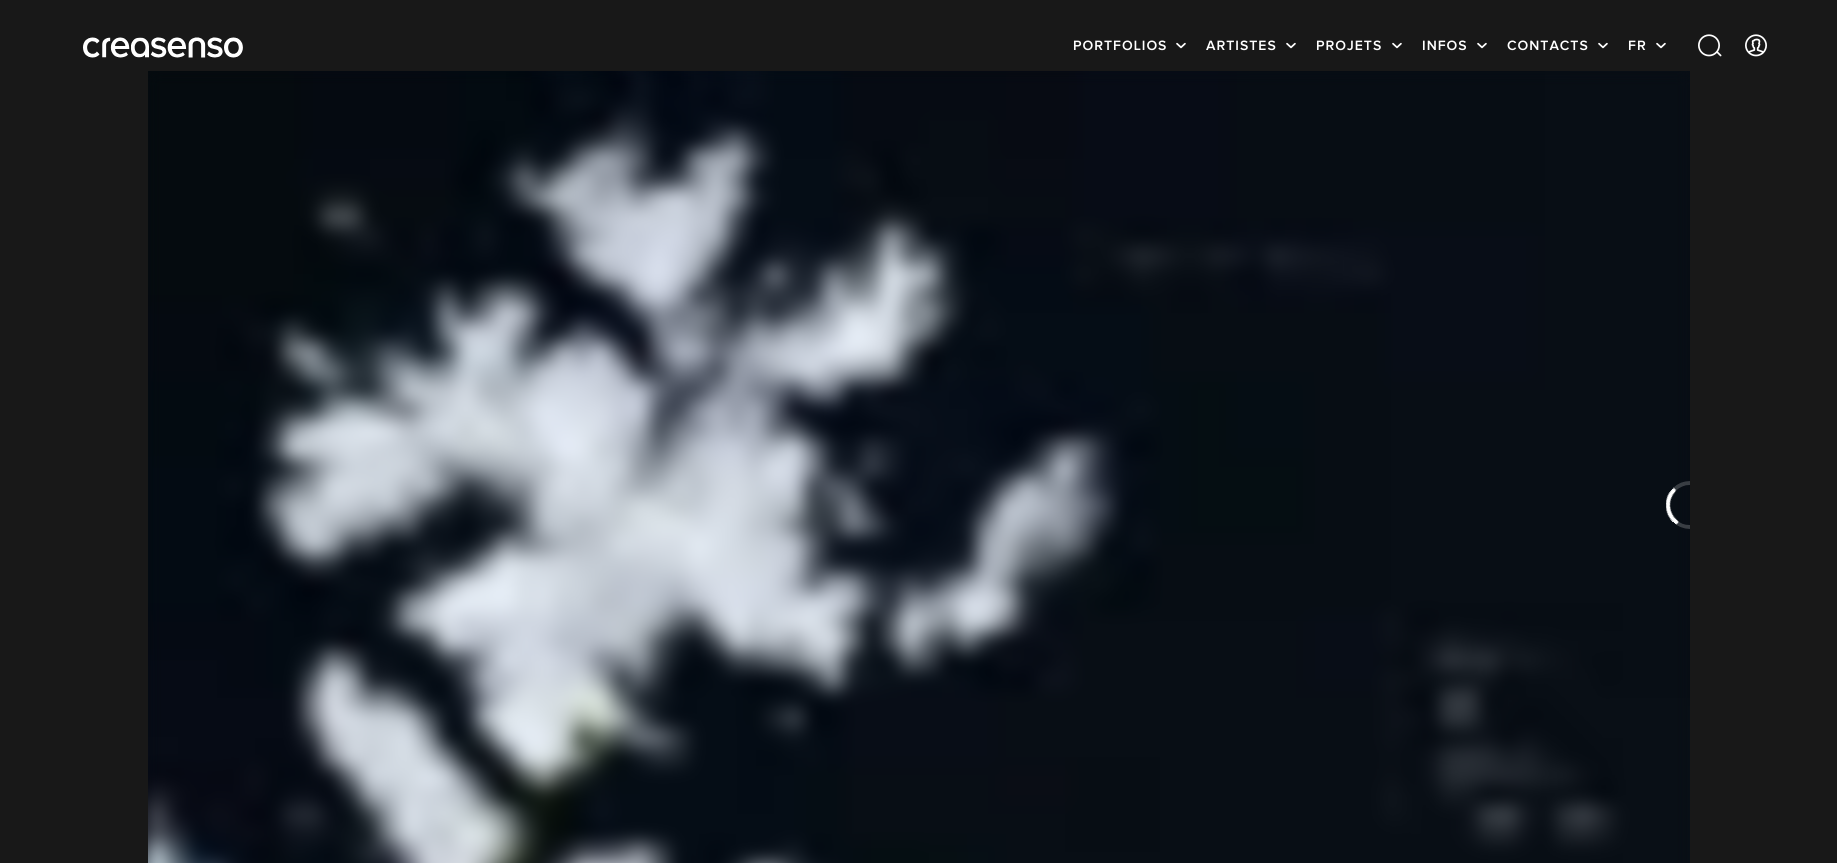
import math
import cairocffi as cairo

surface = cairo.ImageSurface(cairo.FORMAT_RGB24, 1837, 863)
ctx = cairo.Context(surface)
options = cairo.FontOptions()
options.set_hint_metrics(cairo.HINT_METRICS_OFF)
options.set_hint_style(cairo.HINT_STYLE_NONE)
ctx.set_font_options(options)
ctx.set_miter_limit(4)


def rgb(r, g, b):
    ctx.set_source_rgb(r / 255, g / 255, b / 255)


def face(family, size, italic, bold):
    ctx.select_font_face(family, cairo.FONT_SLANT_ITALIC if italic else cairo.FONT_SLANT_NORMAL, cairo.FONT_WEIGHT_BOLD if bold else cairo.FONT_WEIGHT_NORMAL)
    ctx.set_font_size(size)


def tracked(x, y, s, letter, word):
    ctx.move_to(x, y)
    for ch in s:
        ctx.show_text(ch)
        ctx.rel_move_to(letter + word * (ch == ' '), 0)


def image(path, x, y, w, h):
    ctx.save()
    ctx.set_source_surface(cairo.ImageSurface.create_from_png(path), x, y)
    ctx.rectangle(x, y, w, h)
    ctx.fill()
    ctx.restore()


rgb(24, 24, 24)
ctx.paint()
image('image0.png', 83, 37, 160, 21)
face('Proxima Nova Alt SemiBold', 14, 0, 0)
rgb(255, 255, 255)
tracked(1073, 50, 'PORTFOLIOS', 1, 0)
image('image1.png', 1176, 42, 10, 7)
tracked(1206, 50, 'ARTISTES', 1, 0)
image('image1.png', 1286, 42, 10, 7)
tracked(1316, 50, 'PROJETS', 1, 0)
image('image1.png', 1392, 42, 10, 7)
tracked(1422, 50, 'INFOS', 1, 0)
image('image1.png', 1477, 42, 10, 7)
tracked(1507, 50, 'CONTACTS', 1, 0)
image('image1.png', 1598, 42, 10, 7)
tracked(1628, 50, 'FR', 1, 0)
image('image1.png', 1656, 42, 10, 7)
image('image2.png', 1698, 34, 24, 23)
image('image3.png', 1745, 34, 22, 23)
image('image4.png', 148, 71, 1542, 792)
surface.write_to_png('render.png')
